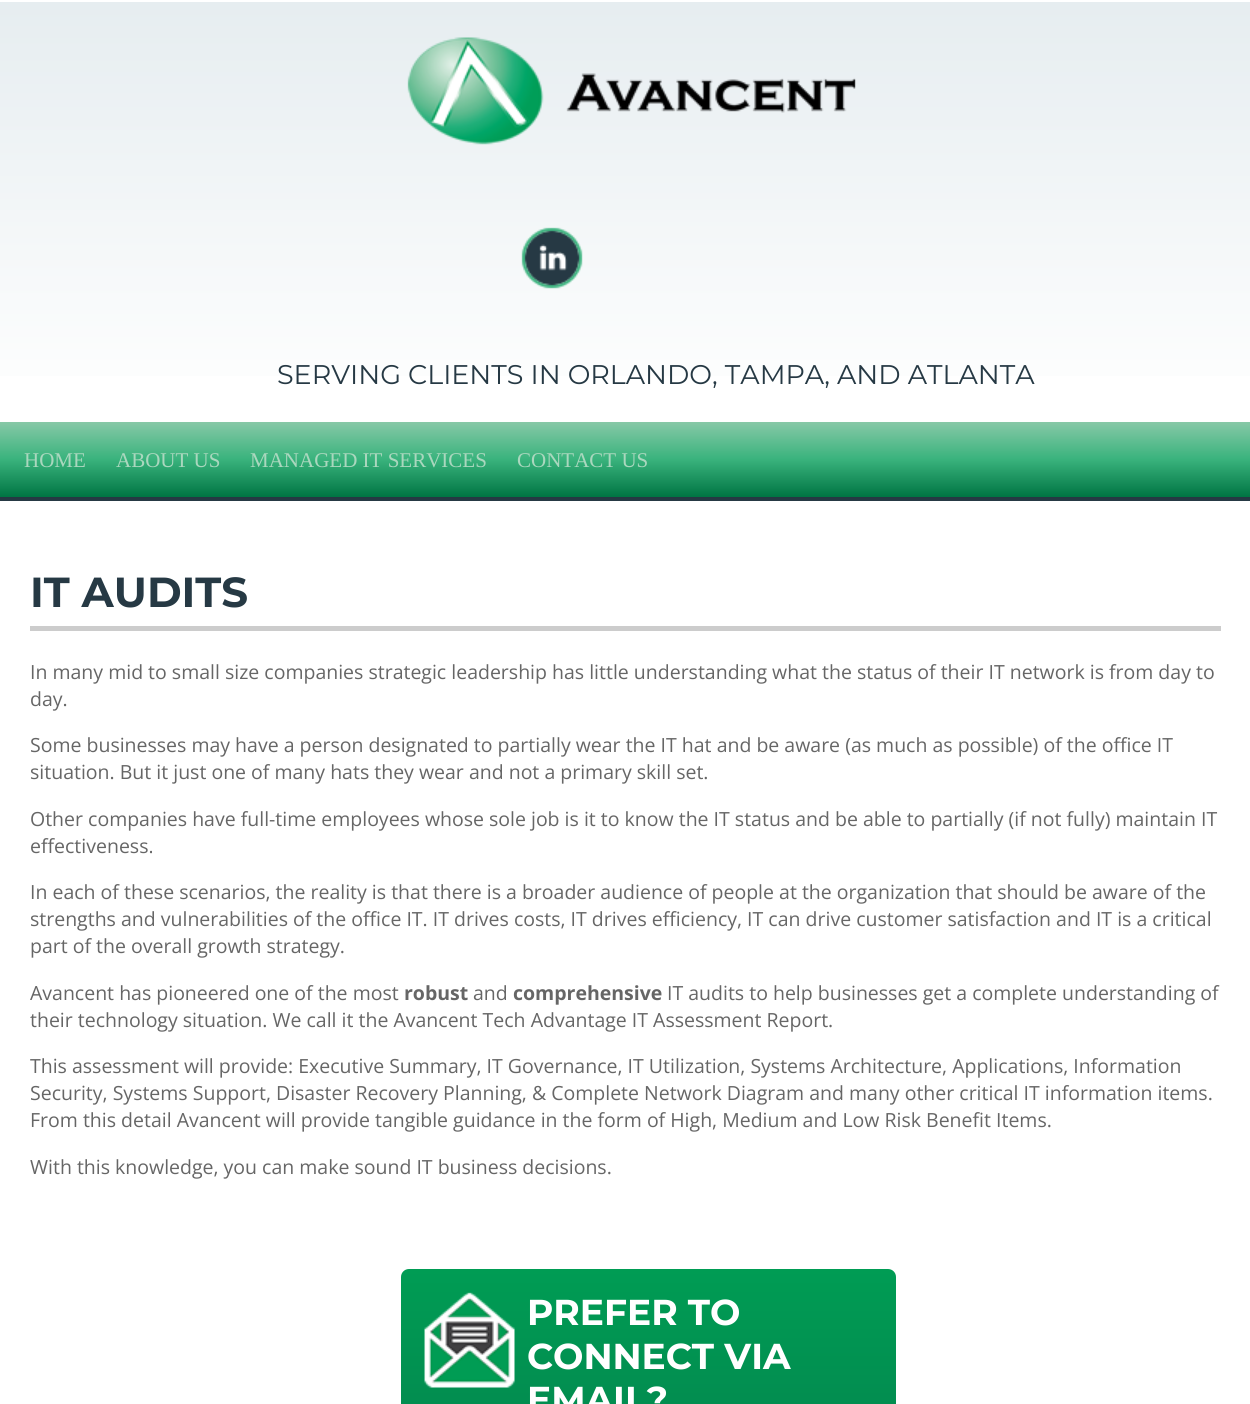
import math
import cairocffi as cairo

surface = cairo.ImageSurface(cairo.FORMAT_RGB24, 1250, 1404)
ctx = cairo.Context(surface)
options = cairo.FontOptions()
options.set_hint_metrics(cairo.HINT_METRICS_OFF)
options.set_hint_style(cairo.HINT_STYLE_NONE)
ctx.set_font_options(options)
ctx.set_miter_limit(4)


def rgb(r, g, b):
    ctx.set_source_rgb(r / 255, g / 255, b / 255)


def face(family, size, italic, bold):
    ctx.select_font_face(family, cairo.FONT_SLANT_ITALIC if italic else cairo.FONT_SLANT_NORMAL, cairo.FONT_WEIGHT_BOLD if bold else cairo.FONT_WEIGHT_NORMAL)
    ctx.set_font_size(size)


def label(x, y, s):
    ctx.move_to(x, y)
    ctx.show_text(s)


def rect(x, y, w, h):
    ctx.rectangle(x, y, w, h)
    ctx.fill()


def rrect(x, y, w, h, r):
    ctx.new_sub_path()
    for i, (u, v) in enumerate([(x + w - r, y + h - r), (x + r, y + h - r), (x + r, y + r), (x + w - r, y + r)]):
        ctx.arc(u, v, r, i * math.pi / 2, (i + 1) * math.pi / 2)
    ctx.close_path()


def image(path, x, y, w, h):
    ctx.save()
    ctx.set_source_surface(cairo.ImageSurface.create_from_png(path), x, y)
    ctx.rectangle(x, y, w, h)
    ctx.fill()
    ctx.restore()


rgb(255, 255, 255)
ctx.paint()
gradient = cairo.LinearGradient(626, 1.5, 626, 422)
gradient.add_color_stop_rgba(0, 0.902, 0.929, 0.941, 1)
gradient.add_color_stop_rgba(0.99, 1, 1, 1, 1)
ctx.set_source(gradient)
rect(0, 2, 1250, 374)
image('image0.png', 407, 37, 449, 108)
image('image1.png', 521, 227, 62, 62)
face('Montserrat Thin', 27, 0, 0)
rgb(38, 57, 68)
label(277, 384, 'SERVING CLIENTS IN ORLANDO, TAMPA, AND ATLANTA')
gradient = cairo.LinearGradient(626, 421, 626, 501)
gradient.add_color_stop_rgba(0, 0.098, 0.149, 0.176, 1)
gradient.add_color_stop_rgba(1, 0.149, 0.224, 0.267, 1)
ctx.set_source(gradient)
rect(0, 497, 1250, 4)
gradient = cairo.LinearGradient(626, 421, 626, 497)
gradient.add_color_stop_rgba(0, 0.537, 0.788, 0.659, 1)
gradient.add_color_stop_rgba(0.5, 0.227, 0.702, 0.49, 1)
gradient.add_color_stop_rgba(1, 0, 0.459, 0.263, 1)
ctx.set_source(gradient)
rect(0, 422, 1250, 75)
face('Liberation Serif', 21, 0, 0)
rgb(170, 215, 190)
label(24, 467, 'HOME')
label(116, 467, 'ABOUT US')
label(250, 467, 'MANAGED IT SERVICES')
label(517, 467, 'CONTACT US')
rgb(204, 204, 204)
rect(30, 626, 1191, 5)
face('Montserrat', 42, 0, 1)
rgb(38, 57, 68)
label(30, 607, 'IT AUDITS')
face('Open Sans', 19.5, 0, 0)
rgb(102, 102, 102)
label(30, 679, 'In many mid to small size companies strategic leadership has little understanding what the status of their IT network is from day to')
label(30, 706, 'day.')
label(30, 752, 'Some businesses may have a person designated to partially wear the IT hat and be aware (as much as possible) of the office IT')
label(30, 779, 'situation. But it just one of many hats they wear and not a primary skill set.')
label(30, 826, 'Other companies have full-time employees whose sole job is it to know the IT status and be able to partially (if not fully) maintain IT')
label(30, 853, 'effectiveness.')
label(30, 899, 'In each of these scenarios, the reality is that there is a broader audience of people at the organization that should be aware of the')
label(30, 926, 'strengths and vulnerabilities of the office IT. IT drives costs, IT drives efficiency, IT can drive customer satisfaction and IT is a critical')
label(30, 953, 'part of the overall growth strategy.')
label(30, 1000, 'Avancent has pioneered one of the most')
face('Open Sans', 19.5, 0, 1)
label(404, 1000, 'robust')
face('Open Sans', 19.5, 0, 0)
label(473, 1000, 'and')
face('Open Sans', 19.5, 0, 1)
label(513, 1000, 'comprehensive')
face('Open Sans', 19.5, 0, 0)
label(667, 1000, 'IT audits to help businesses get a complete understanding of')
label(30, 1027, 'their technology situation. We call it the Avancent Tech Advantage IT Assessment Report.')
label(30, 1073, 'This assessment will provide: Executive Summary, IT Governance, IT Utilization, Systems Architecture, Applications, Information')
label(30, 1100, 'Security, Systems Support, Disaster Recovery Planning, & Complete Network Diagram and many other critical IT information items.')
label(30, 1127, 'From this detail Avancent will provide tangible guidance in the form of High, Medium and Low Risk Benefit Items.')
label(30, 1174, 'With this knowledge, you can make sound IT business decisions.')
gradient = cairo.LinearGradient(648, 1269, 648, 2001)
gradient.add_color_stop_rgba(0, 0, 0.612, 0.329, 1)
gradient.add_color_stop_rgba(1, 0.043, 0.298, 0.247, 1)
ctx.set_source(gradient)
rrect(401, 1269, 495, 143, 8)
ctx.fill()
image('image2.png', 424, 1292, 91, 96)
face('Montserrat', 36, 0, 1)
rgb(255, 255, 255)
label(527, 1325, 'PREFER TO')
label(527, 1369, 'CONNECT VIA')
label(527, 1412, 'EMAIL?')
surface.write_to_png('render.png')
